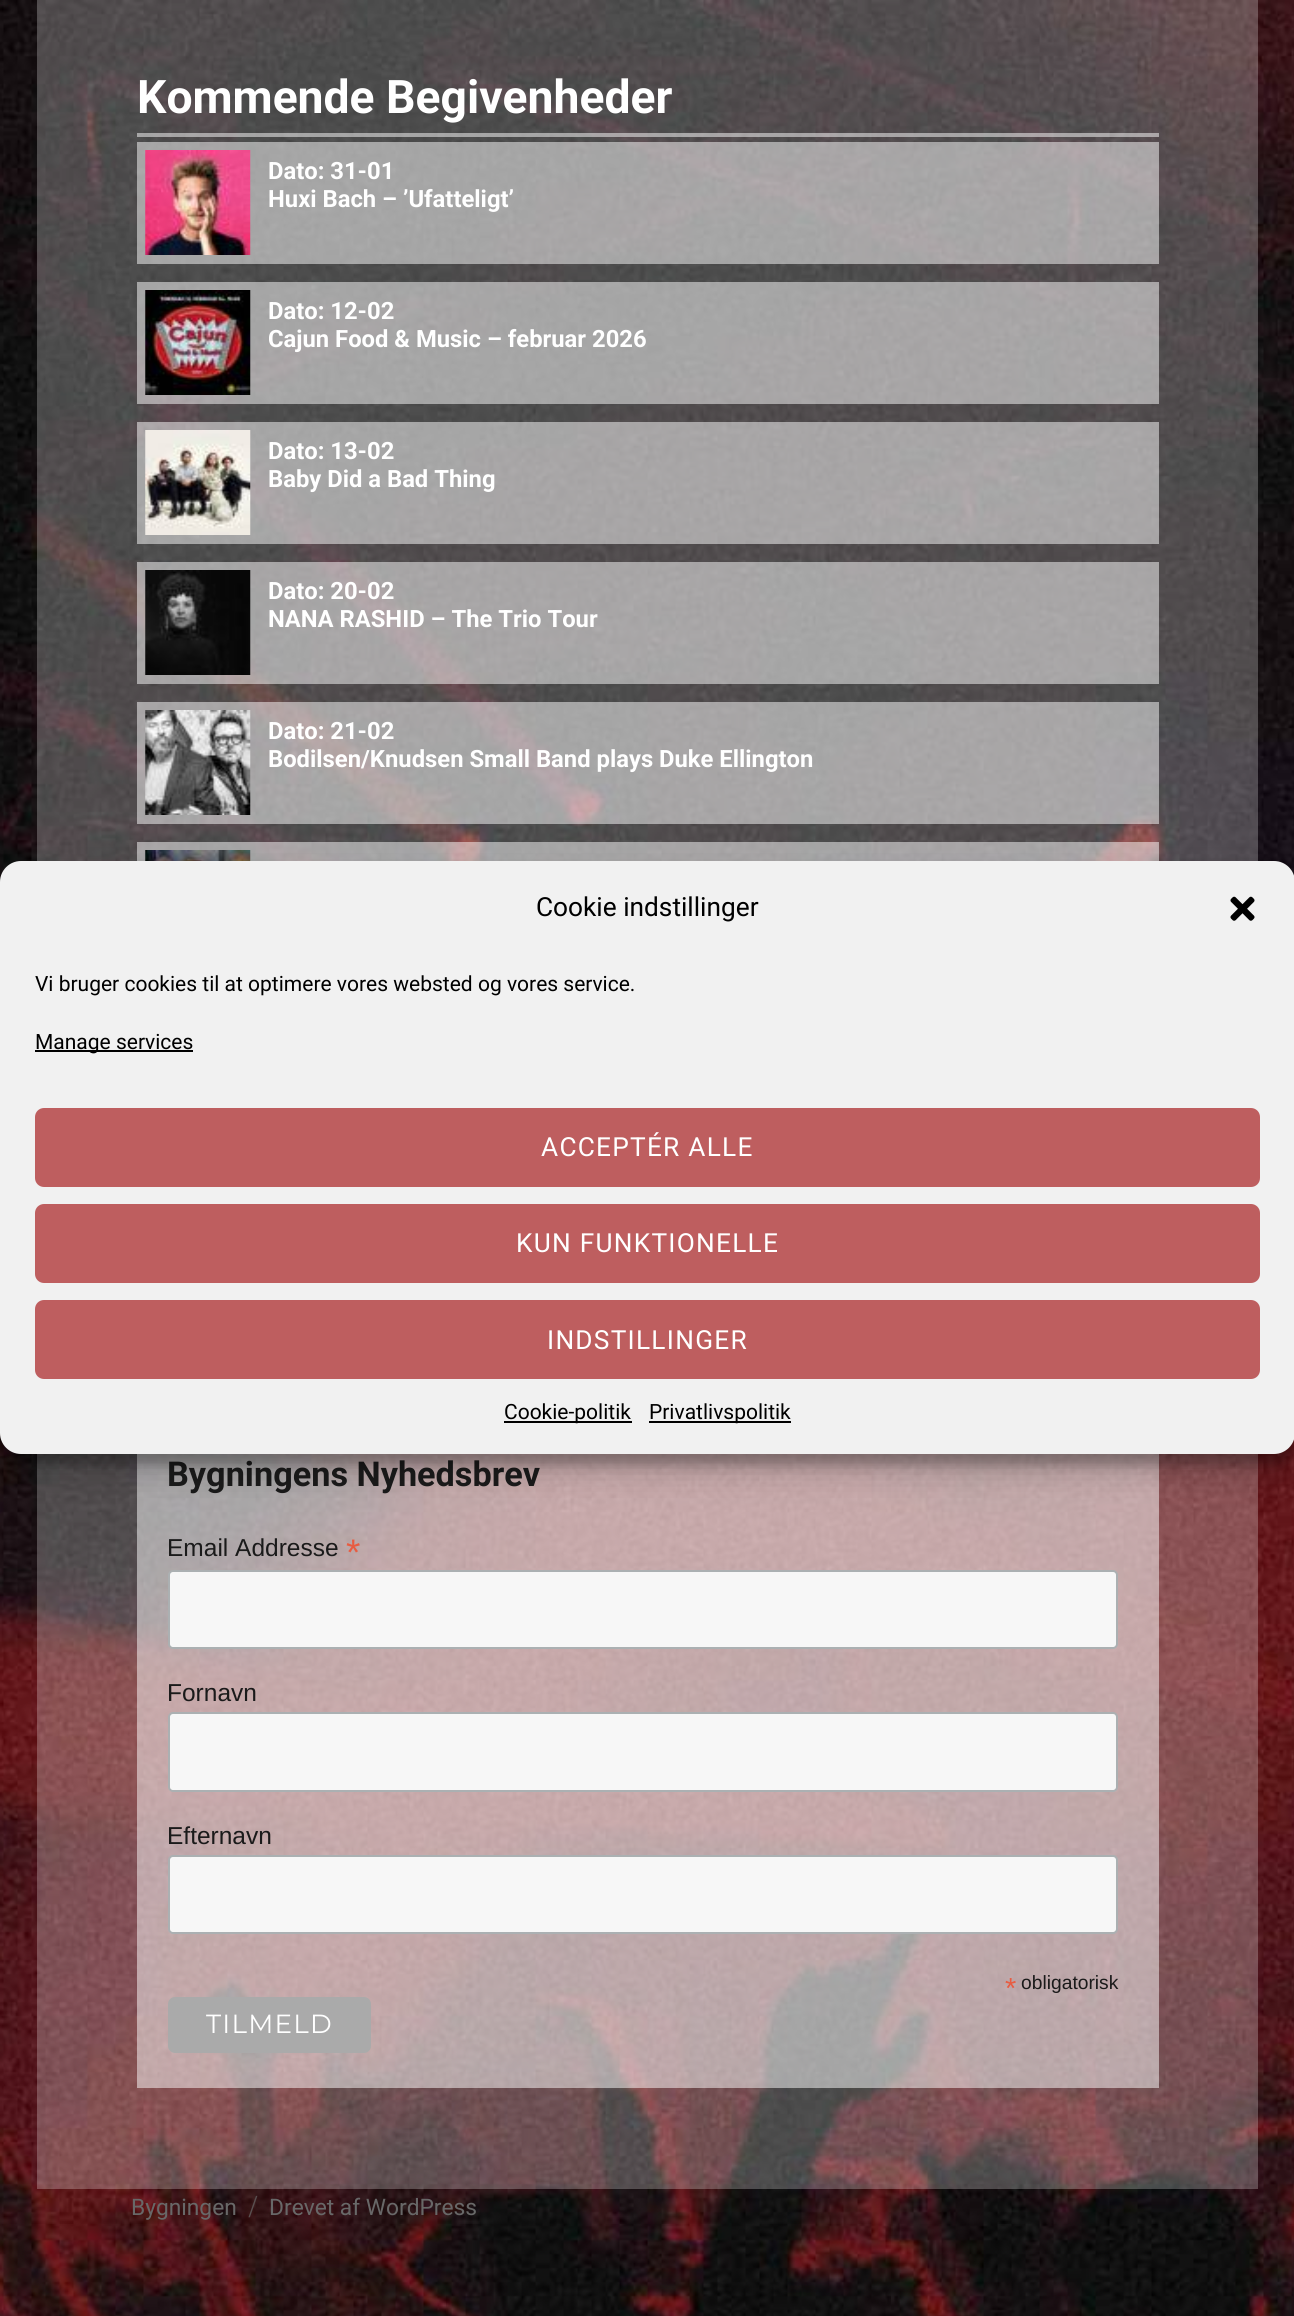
import math
import cairocffi as cairo

surface = cairo.ImageSurface(cairo.FORMAT_RGB24, 1294, 2316)
ctx = cairo.Context(surface)
options = cairo.FontOptions()
options.set_hint_metrics(cairo.HINT_METRICS_OFF)
options.set_hint_style(cairo.HINT_STYLE_NONE)
ctx.set_font_options(options)
ctx.set_miter_limit(4)


def rgb(r, g, b):
    ctx.set_source_rgb(r / 255, g / 255, b / 255)


def face(family, size, italic, bold):
    ctx.select_font_face(family, cairo.FONT_SLANT_ITALIC if italic else cairo.FONT_SLANT_NORMAL, cairo.FONT_WEIGHT_BOLD if bold else cairo.FONT_WEIGHT_NORMAL)
    ctx.set_font_size(size)


def label(x, y, s):
    ctx.move_to(x, y)
    ctx.show_text(s)


def tracked(x, y, s, letter, word):
    ctx.move_to(x, y)
    for ch in s:
        ctx.show_text(ch)
        ctx.rel_move_to(letter + word * (ch == ' '), 0)


def rect(x, y, w, h):
    ctx.rectangle(x, y, w, h)
    ctx.fill()


def rrect(x, y, w, h, r):
    ctx.new_sub_path()
    for i, (u, v) in enumerate([(x + w - r, y + h - r), (x + r, y + h - r), (x + r, y + r), (x + w - r, y + r)]):
        ctx.arc(u, v, r, i * math.pi / 2, (i + 1) * math.pi / 2)
    ctx.close_path()


def soft_shadow(x, y, w, h, r, blur, alpha):
    ctx.push_group_with_content(cairo.CONTENT_ALPHA)
    ctx.set_operator(cairo.OPERATOR_SOURCE)
    for i in range(15, -16, -2):
        e = blur * i / 6
        if min(w, h) + 2 * e > 0:
            ctx.set_source_rgba(0, 0, 0, alpha * math.erfc((i - 1) / 8.5) / 2)
            rrect(x - e, y - e, w + 2 * e, h + 2 * e, max(0, min(r + e + blur * .6, min(w, h) / 2 + e)))
            ctx.fill()
    ctx.mask(ctx.pop_group())


def image(path, x, y, w, h):
    ctx.save()
    ctx.set_source_surface(cairo.ImageSurface.create_from_png(path), x, y)
    ctx.rectangle(x, y, w, h)
    ctx.fill()
    ctx.restore()


rgb(255, 255, 255)
ctx.paint()
image('image0.png', 0, 0, 1294, 2316)
ctx.set_source_rgba(1, 1, 1, 0.25)
rect(37, 0, 1221, 2189)
face('Roboto', 46.25, 0, 1)
rgb(255, 255, 255)
label(137, 113, 'Kommende Begivenheder')
ctx.set_source_rgba(1, 1, 1, 0.5)
rect(137, 142, 1022, 122)
image('image1.png', 145, 150, 106, 105)
face('Roboto', 23.8, 0, 1)
rgb(255, 255, 255)
label(268, 179, 'Dato: 31-01')
label(268, 207, 'Huxi Bach – ’Ufatteligt’')
ctx.set_source_rgba(1, 1, 1, 0.5)
rect(137, 282, 1022, 122)
image('image2.png', 145, 290, 106, 105)
rgb(255, 255, 255)
label(268, 319, 'Dato: 12-02')
label(268, 347, 'Cajun Food & Music – februar 2026')
ctx.set_source_rgba(1, 1, 1, 0.5)
rect(137, 422, 1022, 122)
image('image3.png', 145, 430, 106, 105)
rgb(255, 255, 255)
label(268, 459, 'Dato: 13-02')
label(268, 487, 'Baby Did a Bad Thing')
ctx.set_source_rgba(1, 1, 1, 0.5)
rect(137, 562, 1022, 122)
image('image4.png', 145, 570, 106, 105)
rgb(255, 255, 255)
label(268, 599, 'Dato: 20-02')
label(268, 627, 'NANA RASHID – The Trio Tour')
ctx.set_source_rgba(1, 1, 1, 0.5)
rect(137, 702, 1022, 122)
image('image5.png', 145, 710, 106, 105)
rgb(255, 255, 255)
label(268, 739, 'Dato: 21-02')
label(268, 767, 'Bodilsen/Knudsen Small Band plays Duke Ellington')
ctx.set_source_rgba(1, 1, 1, 0.5)
rect(137, 842, 1022, 19)
image('image6.png', 145, 850, 106, 11)
rect(137, 133, 1022, 4)
rect(137, 1454, 1022, 634)
face('Roboto', 34.25, 0, 1)
rgb(26, 26, 26)
label(167, 1486, 'Bygningens Nyhedsbrev')
face('Liberation Sans', 24.5, 0, 0)
label(167, 1556, 'Email Addresse')
face('Liberation Sans', 37, 0, 0)
rgb(232, 92, 65)
label(346, 1565, '*')
rgb(247, 247, 247)
rrect(169, 1571, 948, 77, 4)
ctx.fill_preserve()
rgb(171, 176, 178)
ctx.stroke()
face('Liberation Sans', 24.5, 0, 0)
rgb(26, 26, 26)
label(167, 1701, 'Fornavn')
rgb(247, 247, 247)
rrect(169, 1713, 948, 78, 4)
ctx.fill_preserve()
rgb(171, 176, 178)
ctx.stroke()
rgb(26, 26, 26)
label(167, 1844, 'Efternavn')
rgb(247, 247, 247)
rrect(169, 1856, 948, 77, 4)
ctx.fill_preserve()
rgb(171, 176, 178)
ctx.stroke()
face('Liberation Sans', 29, 0, 0)
rgb(232, 92, 65)
label(1005, 1998, '*')
face('Liberation Sans', 19.25, 0, 0)
rgb(26, 26, 26)
label(1021, 1989, 'obligatorisk')
rgb(170, 170, 170)
rrect(168, 1997, 203, 56, 7)
ctx.fill()
face('Montserrat Thin', 26.25, 0, 0)
rgb(255, 255, 255)
tracked(206, 2033, 'TILMELD', 1.25, 0)
face('Roboto', 22.75, 0, 0)
rgb(104, 104, 104)
label(131, 2215, 'Bygningen')
face('Montserrat Thin', 22.75, 0, 0)
rgb(89, 80, 80)
label(249, 2215, '/')
face('Roboto', 22.75, 0, 0)
rgb(104, 104, 104)
label(269, 2215, 'Drevet af WordPress')
rgb(0, 0, 0)
soft_shadow(0, 872, 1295, 593, 21, 5, 0.23)
soft_shadow(0, 879, 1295, 593, 21, 17.5, 0.19)
rgb(241, 241, 241)
rrect(0, 861, 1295, 593, 21)
ctx.fill()
face('Roboto', 26.25, 0, 0)
rgb(0, 0, 0)
label(536, 916, 'Cookie indstillinger')
image('image7.png', 1230, 896, 25, 25)
face('Roboto', 21, 0, 0)
label(35, 991, 'Vi bruger cookies til at optimere vores websted og vores service.')
rect(35, 1050, 158, 2)
label(35, 1049, 'Manage services')
rgb(190, 94, 95)
rrect(36, 1109, 1223, 77, 8)
ctx.fill_preserve()
ctx.stroke()
face('Roboto', 26.25, 0, 0)
rgb(255, 255, 255)
tracked(541, 1156, 'ACCEPTÉR ALLE', 1.25, 0)
rgb(190, 94, 95)
rrect(36, 1205, 1223, 77, 8)
ctx.fill_preserve()
ctx.stroke()
rgb(255, 255, 255)
tracked(516, 1252, 'KUN FUNKTIONELLE', 1.25, 0)
rgb(190, 94, 95)
rrect(36, 1301, 1223, 77, 8)
ctx.fill_preserve()
ctx.stroke()
rgb(255, 255, 255)
tracked(547, 1349, 'INDSTILLINGER', 1.25, 0)
rgb(0, 0, 0)
rect(504, 1421, 128, 2)
face('Roboto', 21, 0, 0)
label(504, 1419, 'Cookie-politik')
rect(649, 1421, 142, 2)
label(649, 1419, 'Privatlivspolitik')
surface.write_to_png('render.png')
